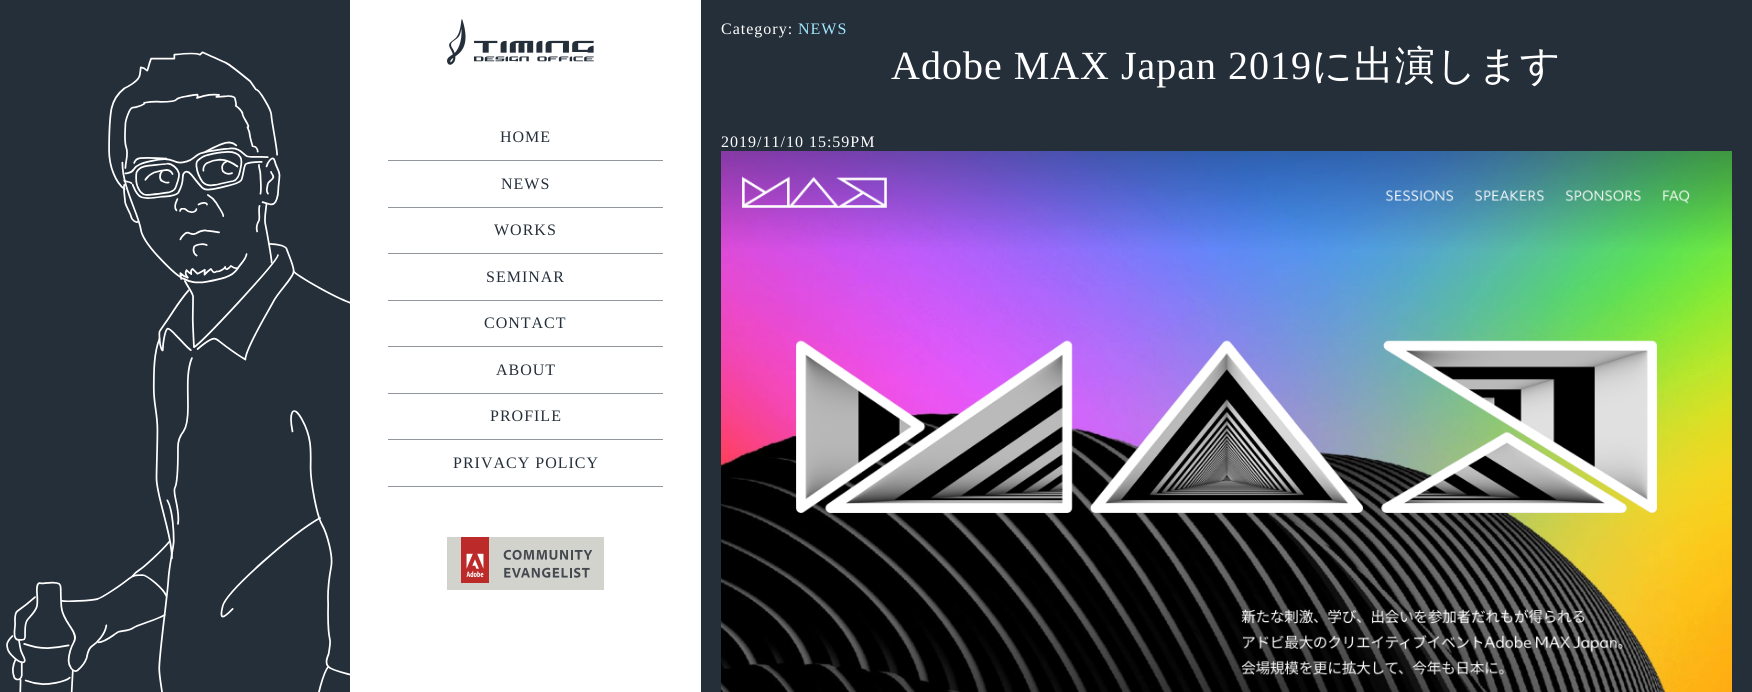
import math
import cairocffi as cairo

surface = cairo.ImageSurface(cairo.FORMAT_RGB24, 1752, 692)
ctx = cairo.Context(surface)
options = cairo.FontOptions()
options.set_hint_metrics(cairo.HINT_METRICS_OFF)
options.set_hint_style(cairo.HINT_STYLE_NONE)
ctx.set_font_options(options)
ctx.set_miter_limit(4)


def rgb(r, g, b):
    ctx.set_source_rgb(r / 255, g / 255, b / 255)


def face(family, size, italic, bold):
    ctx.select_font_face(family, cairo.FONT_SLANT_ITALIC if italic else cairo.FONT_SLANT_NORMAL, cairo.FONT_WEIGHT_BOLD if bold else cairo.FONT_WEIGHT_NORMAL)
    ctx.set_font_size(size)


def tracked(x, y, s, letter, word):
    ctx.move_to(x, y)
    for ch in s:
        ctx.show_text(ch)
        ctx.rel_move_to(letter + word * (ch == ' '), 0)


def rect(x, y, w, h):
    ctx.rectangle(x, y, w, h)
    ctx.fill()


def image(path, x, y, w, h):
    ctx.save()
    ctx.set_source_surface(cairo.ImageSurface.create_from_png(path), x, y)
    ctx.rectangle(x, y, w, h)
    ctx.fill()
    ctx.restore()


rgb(37, 47, 58)
ctx.paint()
image('image0.png', 6, 51, 344, 641)
rgb(255, 255, 255)
rect(350, 0, 351, 692)
image('image1.png', 447, 19, 147, 46)
rgb(146, 151, 157)
rect(388, 160, 275, 1)
face('Liberation Serif', 16, 0, 0)
rgb(37, 47, 58)
tracked(500, 142, 'HOME', 1, 0)
rgb(146, 151, 157)
rect(388, 207, 275, 1)
rgb(37, 47, 58)
tracked(501, 189, 'NEWS', 1, 0)
rgb(146, 151, 157)
rect(388, 253, 275, 1)
rgb(37, 47, 58)
tracked(494, 235, 'WORKS', 1, 0)
rgb(146, 151, 157)
rect(388, 300, 275, 1)
rgb(37, 47, 58)
tracked(486, 282, 'SEMINAR', 1, 0)
rgb(146, 151, 157)
rect(388, 346, 275, 1)
rgb(37, 47, 58)
tracked(484, 328, 'CONTACT', 1, 0)
rgb(146, 151, 157)
rect(388, 393, 275, 1)
rgb(37, 47, 58)
tracked(496, 375, 'ABOUT', 1, 0)
rgb(146, 151, 157)
rect(388, 439, 275, 1)
rgb(37, 47, 58)
tracked(490, 421, 'PROFILE', 1, 0)
rgb(146, 151, 157)
rect(388, 486, 275, 1)
rgb(37, 47, 58)
tracked(453, 468, 'PRIVACY POLICY', 1, 0)
image('image2.png', 447, 537, 157, 53)
rgb(255, 255, 255)
tracked(721, 34, 'Category:', 1, 0)
rgb(160, 233, 255)
tracked(798, 34, 'NEWS', 1, 0)
face('Liberation Serif', 40, 0, 0)
rgb(255, 255, 255)
tracked(891, 79, 'Adobe MAX Japan 2019', 1, 0)
face('WenQuanYi Zen Hei Medium', 40, 0, 0)
tracked(1312, 79, 'に出演します', 1, 0)
face('Liberation Serif', 16, 0, 0)
tracked(721, 147, '2019/11/10 15:59PM', 1, 0)
image('image3.png', 721, 151, 1011, 541)
surface.write_to_png('render.png')
